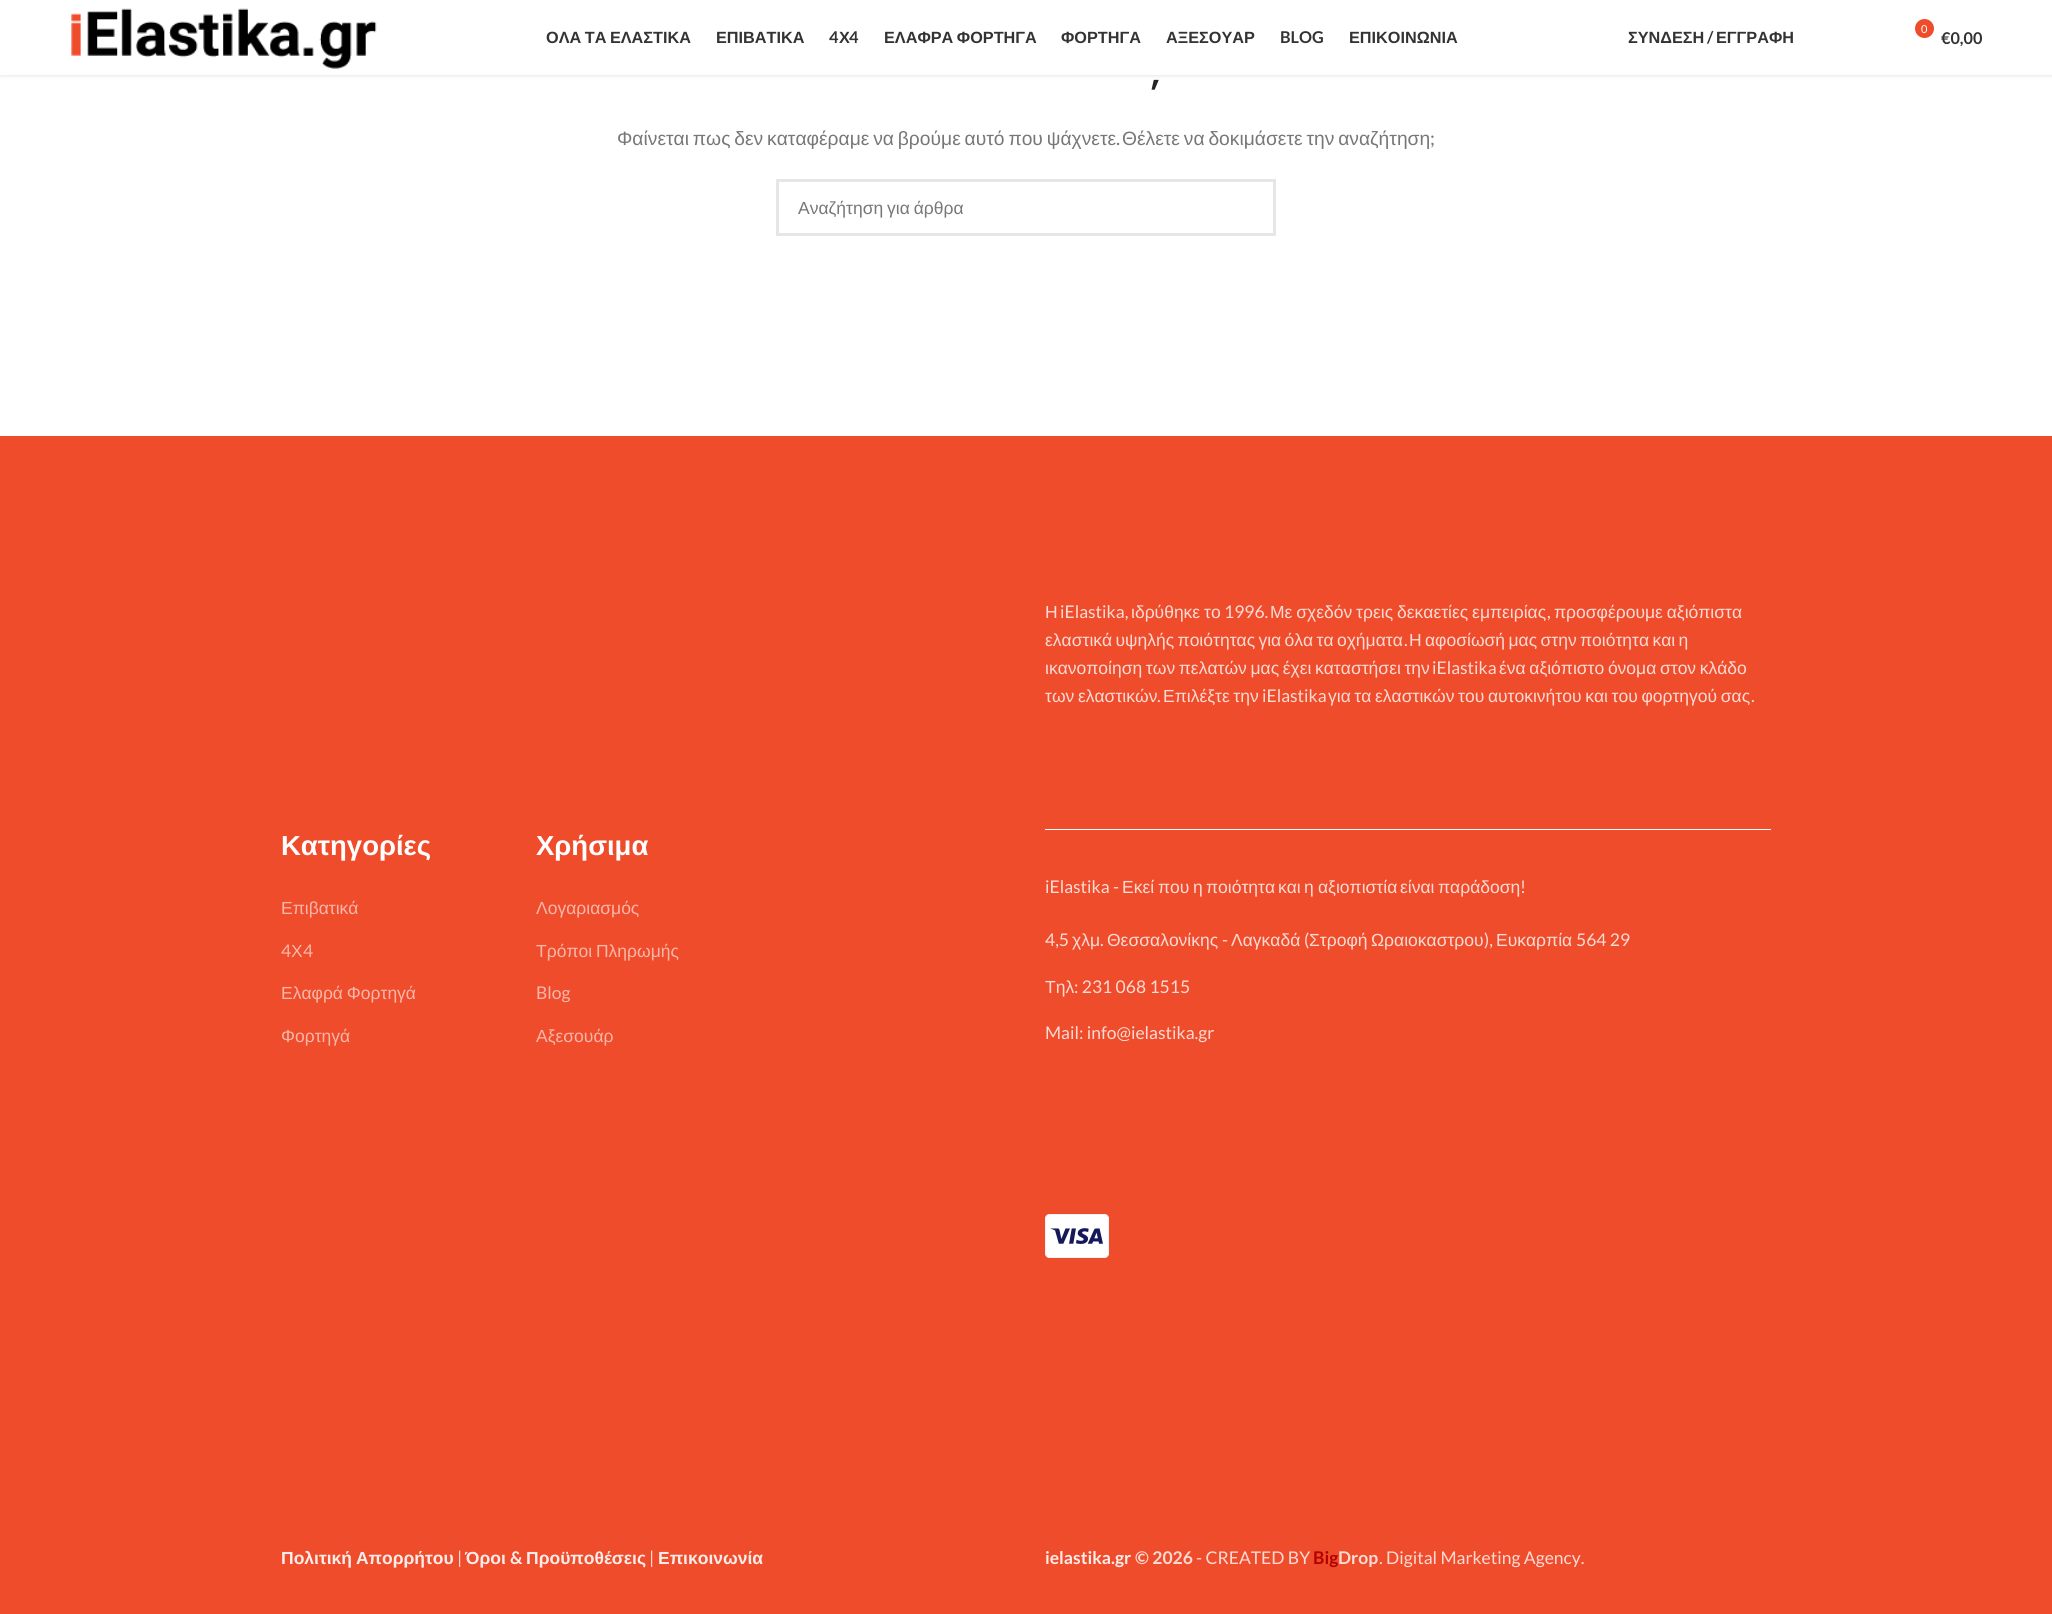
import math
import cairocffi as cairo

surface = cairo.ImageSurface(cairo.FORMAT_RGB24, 2052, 1614)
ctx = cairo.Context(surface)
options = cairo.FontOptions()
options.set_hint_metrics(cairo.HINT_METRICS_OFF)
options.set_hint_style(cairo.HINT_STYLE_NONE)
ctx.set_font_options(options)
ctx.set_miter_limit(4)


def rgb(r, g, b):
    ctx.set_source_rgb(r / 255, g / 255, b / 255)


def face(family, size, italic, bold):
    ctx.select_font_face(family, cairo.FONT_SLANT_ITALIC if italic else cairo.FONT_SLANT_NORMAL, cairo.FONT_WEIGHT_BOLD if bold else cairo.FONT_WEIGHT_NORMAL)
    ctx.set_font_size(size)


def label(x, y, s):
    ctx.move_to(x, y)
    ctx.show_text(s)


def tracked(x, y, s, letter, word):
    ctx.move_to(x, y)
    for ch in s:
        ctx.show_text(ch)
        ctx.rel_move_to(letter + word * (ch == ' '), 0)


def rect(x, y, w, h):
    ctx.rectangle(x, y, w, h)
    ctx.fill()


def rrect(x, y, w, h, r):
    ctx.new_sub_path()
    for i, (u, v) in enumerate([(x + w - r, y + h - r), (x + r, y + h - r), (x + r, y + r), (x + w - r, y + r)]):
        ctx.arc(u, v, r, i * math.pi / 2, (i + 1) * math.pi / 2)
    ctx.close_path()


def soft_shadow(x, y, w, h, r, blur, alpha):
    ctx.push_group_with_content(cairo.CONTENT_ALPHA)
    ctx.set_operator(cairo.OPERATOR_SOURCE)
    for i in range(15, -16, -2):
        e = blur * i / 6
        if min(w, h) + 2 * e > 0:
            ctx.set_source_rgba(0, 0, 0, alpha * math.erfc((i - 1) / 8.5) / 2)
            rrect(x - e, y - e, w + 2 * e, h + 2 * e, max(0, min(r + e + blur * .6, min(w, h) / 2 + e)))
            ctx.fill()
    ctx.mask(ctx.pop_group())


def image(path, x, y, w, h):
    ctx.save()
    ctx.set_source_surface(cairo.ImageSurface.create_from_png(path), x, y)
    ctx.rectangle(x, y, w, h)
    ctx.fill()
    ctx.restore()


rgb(255, 255, 255)
ctx.paint()
rgb(0, 0, 0)
soft_shadow(0, 1, 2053, 75, 0, 2, 0.1)
rgb(255, 255, 255)
rect(0, 0, 2052, 75)
image('image0.png', 71, 8, 306, 61)
face('Liberation Sans', 16.25, 0, 1)
rgb(51, 51, 51)
tracked(546, 43, 'ΟΛΑ ΤΑ ΕΛΑΣΤΙΚΑ', 0, -1)
label(716, 43, 'ΕΠΙΒΑΤΙΚΑ')
face('Lato', 16.25, 0, 1)
label(829, 43, '4')
face('Liberation Sans', 16.25, 0, 1)
label(839, 43, 'Χ')
face('Lato', 16.25, 0, 1)
label(849, 43, '4')
face('Liberation Sans', 16.25, 0, 1)
tracked(884, 43, 'ΕΛΑΦΡΑ ΦΟΡΤΗΓΑ', 0, -1)
label(1061, 43, 'ΦΟΡΤΗΓΑ')
label(1166, 43, 'ΑΞΕΣΟΥΑΡ')
face('Lato', 16.25, 0, 1)
label(1280, 43, 'BLOG')
face('Liberation Sans', 16.25, 0, 1)
label(1349, 43, 'ΕΠΙΚΟΙΝΩΝΙΑ')
label(1628, 43, 'ΣΥΝΔΕΣΗ')
face('Lato', 16.25, 0, 1)
label(1707, 43, '/')
face('Liberation Sans', 16.25, 0, 1)
label(1716, 43, 'ΕΓΓΡΑΦΗ')
rgb(239, 76, 43)
ctx.new_path()
ctx.arc(1924.5, 28.5, 9.5, 0, 2 * math.pi)
ctx.fill()
face('Lato', 11, 0, 0)
rgb(255, 255, 255)
label(1921, 33, '0')
face('Lato', 16.25, 0, 1)
rgb(51, 51, 51)
label(1941, 44, '€0,00')
face('Poppins SemiBold', 35, 0, 0)
rgb(36, 36, 36)
label(1151, 85, ',')
face('Liberation Sans', 19.25, 0, 0)
rgb(119, 119, 119)
tracked(617, 145, 'Φαίνεται πως δεν καταφέραμε να βρούμε αυτό που ψάχνετε', 0, -1.5)
face('Lato', 19.25, 0, 0)
label(1116, 145, '.')
face('Liberation Sans', 19.25, 0, 0)
tracked(1122, 145, 'Θέλετε να δοκιμάσετε την αναζήτηση', 0, -1.5)
face('Lato', 19.25, 0, 0)
label(1430, 145, ';')
ctx.rectangle(777.5, 180.5, 497, 54)
rgb(230, 230, 230)
ctx.set_line_width(3)
ctx.stroke()
face('Liberation Sans', 17.5, 0, 0)
rgb(119, 119, 119)
tracked(798, 214, 'Αναζήτηση για άρθρα', 0, -1)
rgb(239, 76, 43)
rect(0, 436, 2052, 1178)
rgb(252, 219, 213)
label(1045, 618, 'Η')
face('Lato', 17.5, 0, 0)
label(1060, 618, 'iElastika,')
face('Liberation Sans', 17.5, 0, 0)
tracked(1131, 618, 'ιδρύθηκε το', 0, -1)
face('Lato', 17.5, 0, 0)
label(1224, 618, '1996.')
face('Liberation Sans', 17.5, 0, 0)
tracked(1270, 618, 'Με σχεδόν τρεις δεκαετίες εμπειρίας', 0, -1)
face('Lato', 17.5, 0, 0)
label(1547, 618, ',')
face('Liberation Sans', 17.5, 0, 0)
tracked(1554, 618, 'προσφέρουμε αξιόπιστα', 0, -1)
tracked(1045, 646, 'ελαστικά υψηλής ποιότητας για όλα τα οχήματα', 0, -1.5)
face('Lato', 17.5, 0, 0)
label(1404, 646, '.')
face('Liberation Sans', 17.5, 0, 0)
tracked(1409, 646, 'Η αφοσίωσή μας στην ποιότητα και η', 0, -1.5)
tracked(1045, 674, 'ικανοποίηση των πελατών μας έχει καταστήσει την', 0, -1.25)
face('Lato', 17.5, 0, 0)
label(1432, 674, 'iElastika')
face('Liberation Sans', 17.5, 0, 0)
tracked(1499, 674, 'ένα αξιόπιστο όνομα στον κλάδο', 0, -1.25)
tracked(1045, 702, 'των ελαστικών', 0, -1.25)
face('Lato', 17.5, 0, 0)
label(1157, 702, '.')
face('Liberation Sans', 17.5, 0, 0)
tracked(1163, 702, 'Επιλέξτε την', 0, -1.25)
face('Lato', 17.5, 0, 0)
label(1262, 702, 'iElastika')
face('Liberation Sans', 17.5, 0, 0)
tracked(1328, 702, 'για τα ελαστικών του αυτοκινήτου και του φορτηγού σας', 0, -1.25)
face('Lato', 17.5, 0, 0)
label(1751, 702, '.')
face('Liberation Sans', 27.5, 0, 1)
rgb(255, 255, 255)
label(281, 855, 'Κατηγορίες')
face('Liberation Sans', 17.5, 0, 0)
rgb(249, 183, 170)
label(281, 914, 'Επιβατικά')
face('Lato', 17.5, 0, 0)
label(281, 957, '4')
face('Liberation Sans', 17.5, 0, 0)
label(291, 957, 'Χ')
face('Lato', 17.5, 0, 0)
label(303, 957, '4')
face('Liberation Sans', 17.5, 0, 0)
tracked(281, 999, 'Ελαφρά Φορτηγά', 0, -1)
label(281, 1042, 'Φορτηγά')
face('Liberation Sans', 27.5, 0, 1)
rgb(255, 255, 255)
label(536, 855, 'Χρήσιμα')
face('Liberation Sans', 17.5, 0, 0)
rgb(249, 183, 170)
label(536, 914, 'Λογαριασμός')
tracked(536, 957, 'Τρόποι Πληρωμής', 0, -1)
face('Lato', 17.5, 0, 0)
label(536, 999, 'Blog')
face('Liberation Sans', 17.5, 0, 0)
label(536, 1042, 'Αξεσουάρ')
rgb(255, 255, 255)
rect(1045, 829, 726, 1)
face('Lato', 17.5, 0, 0)
rgb(252, 219, 213)
label(1045, 893, 'iElastika -')
face('Liberation Sans', 17.5, 0, 0)
label(1122, 893, 'Εκεί')
label(1158, 893, 'που')
label(1193, 893, 'η')
label(1206, 893, 'ποιότητα')
label(1278, 893, 'και')
label(1304, 893, 'η')
label(1318, 893, 'αξιοπιστία')
label(1400, 893, 'είναι')
label(1438, 893, 'παράδοση')
face('Lato', 17.5, 0, 0)
label(1520, 893, '!')
label(1045, 946, '4,5')
face('Liberation Sans', 17.5, 0, 0)
label(1072, 946, 'χλμ')
label(1107, 946, 'Θεσσαλονίκης')
face('Lato', 17.5, 0, 0)
label(1222, 946, '-')
face('Liberation Sans', 17.5, 0, 0)
label(1231, 946, 'Λαγκαδά')
face('Lato', 17.5, 0, 0)
label(1304, 946, '(')
face('Liberation Sans', 17.5, 0, 0)
label(1309, 946, 'Στροφή')
label(1371, 946, 'Ωραιοκαστρου')
face('Lato', 17.5, 0, 0)
label(1484, 946, '),')
face('Liberation Sans', 17.5, 0, 0)
label(1496, 946, 'Ευκαρπία')
face('Lato', 17.5, 0, 0)
label(1576, 946, '564 29')
label(1100, 946, '.')
face('Liberation Sans', 17.5, 0, 0)
label(1045, 993, 'Τηλ')
face('Lato', 17.5, 0, 0)
label(1074, 993, ': 231 068 1515')
label(1045, 1039, 'Mail: info@ielastika.gr')
image('image1.png', 1045, 1214, 64, 44)
face('Liberation Sans', 17.5, 0, 1)
rgb(253, 237, 234)
tracked(281, 1564, 'Πολιτική Απορρήτου', 0, -1)
face('Lato', 17.5, 0, 0)
rgb(252, 219, 213)
label(457, 1564, '|')
face('Liberation Sans', 17.5, 0, 1)
rgb(253, 237, 234)
label(465, 1564, 'Όροι')
face('Lato', 17.5, 0, 1)
label(510, 1564, '&')
face('Liberation Sans', 17.5, 0, 1)
label(526, 1564, 'Προϋποθέσεις')
face('Lato', 17.5, 0, 0)
rgb(252, 219, 213)
label(649, 1564, '|')
face('Liberation Sans', 17.5, 0, 1)
rgb(253, 237, 234)
label(658, 1564, 'Επικοινωνία')
face('Lato', 17.5, 0, 1)
label(1045, 1564, 'ielastika.gr')
rgb(252, 219, 213)
label(1135, 1564, '© 2026')
face('Lato', 17.5, 0, 0)
label(1196, 1564, '- CREATED BY')
face('Lato', 17.5, 0, 1)
rgb(179, 0, 0)
label(1313, 1564, 'Big')
rgb(252, 219, 213)
label(1338, 1564, 'Drop')
face('Lato', 17.5, 0, 0)
label(1379, 1564, '. Digital Marketing Agency.')
surface.write_to_png('render.png')
